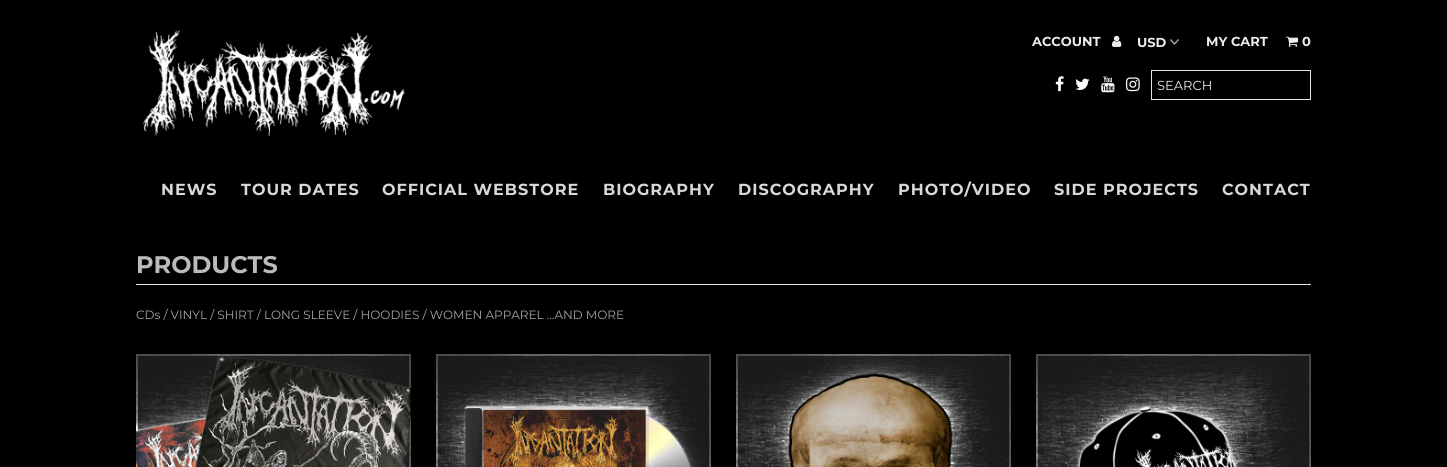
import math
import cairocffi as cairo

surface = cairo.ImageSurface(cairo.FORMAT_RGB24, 1447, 467)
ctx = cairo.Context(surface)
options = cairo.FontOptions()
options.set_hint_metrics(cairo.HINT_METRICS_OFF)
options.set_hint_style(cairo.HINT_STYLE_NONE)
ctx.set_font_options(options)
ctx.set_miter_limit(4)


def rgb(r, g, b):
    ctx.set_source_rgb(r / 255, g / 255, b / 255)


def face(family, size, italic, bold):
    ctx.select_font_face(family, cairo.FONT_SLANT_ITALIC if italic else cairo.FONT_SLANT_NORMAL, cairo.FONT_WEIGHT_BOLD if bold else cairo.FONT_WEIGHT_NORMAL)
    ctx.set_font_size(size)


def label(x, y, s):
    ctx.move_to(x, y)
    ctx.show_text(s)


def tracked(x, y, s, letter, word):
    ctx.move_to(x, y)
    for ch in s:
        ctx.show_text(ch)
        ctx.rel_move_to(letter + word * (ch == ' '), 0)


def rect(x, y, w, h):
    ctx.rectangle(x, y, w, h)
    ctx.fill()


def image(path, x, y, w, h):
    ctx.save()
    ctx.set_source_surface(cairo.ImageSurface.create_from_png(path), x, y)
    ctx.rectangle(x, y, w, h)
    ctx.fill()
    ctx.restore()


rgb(0, 0, 0)
ctx.paint()
image('image0.png', 143, 30, 262, 106)
face('Montserrat', 13, 0, 1)
rgb(236, 236, 236)
label(1032, 46, 'ACCOUNT')
image('image1.png', 1112, 35, 10, 12)
image('image2.png', 1170, 39, 9, 6)
label(1137, 47, 'USD')
label(1206, 46, 'MY CART')
image('image3.png', 1286, 36, 13, 11)
label(1302, 46, '0')
image('image4.png', 1055, 76, 9, 16)
image('image5.png', 1075, 78, 15, 12)
image('image6.png', 1101, 76, 14, 17)
image('image7.png', 1126, 77, 14, 15)
ctx.rectangle(1151.5, 70.5, 159, 29)
rgb(229, 229, 229)
ctx.set_line_width(1)
ctx.stroke()
face('Montserrat', 13, 0, 0)
rgb(236, 236, 236)
label(1157, 90, 'SEARCH')
face('Montserrat', 16, 0, 1)
rgb(216, 216, 216)
tracked(161, 195, 'NEWS', 1, 0)
tracked(241, 195, 'TOUR DATES', 1, 0)
tracked(382, 195, 'OFFICIAL WEBSTORE', 1, 0)
tracked(603, 195, 'BIOGRAPHY', 1, 0)
tracked(738, 195, 'DISCOGRAPHY', 1, 0)
tracked(898, 195, 'PHOTO/VIDEO', 1, 0)
tracked(1054, 195, 'SIDE PROJECTS', 1, 0)
tracked(1222, 195, 'CONTACT', 1, 0)
rgb(229, 229, 229)
rect(136, 284, 1175, 1)
face('Montserrat', 24, 0, 1)
rgb(187, 187, 187)
label(136, 273, 'PRODUCTS')
face('Montserrat', 12, 0, 0)
rgb(165, 165, 165)
label(136, 319, 'CDs / VINYL / SHIRT / LONG SLEEVE / HOODIES / WOMEN APPAREL ...AND MORE')
image('image8.png', 136, 354, 275, 113)
image('image9.png', 436, 354, 275, 113)
image('image10.png', 736, 354, 275, 113)
image('image11.png', 1036, 354, 275, 113)
surface.write_to_png('render.png')
